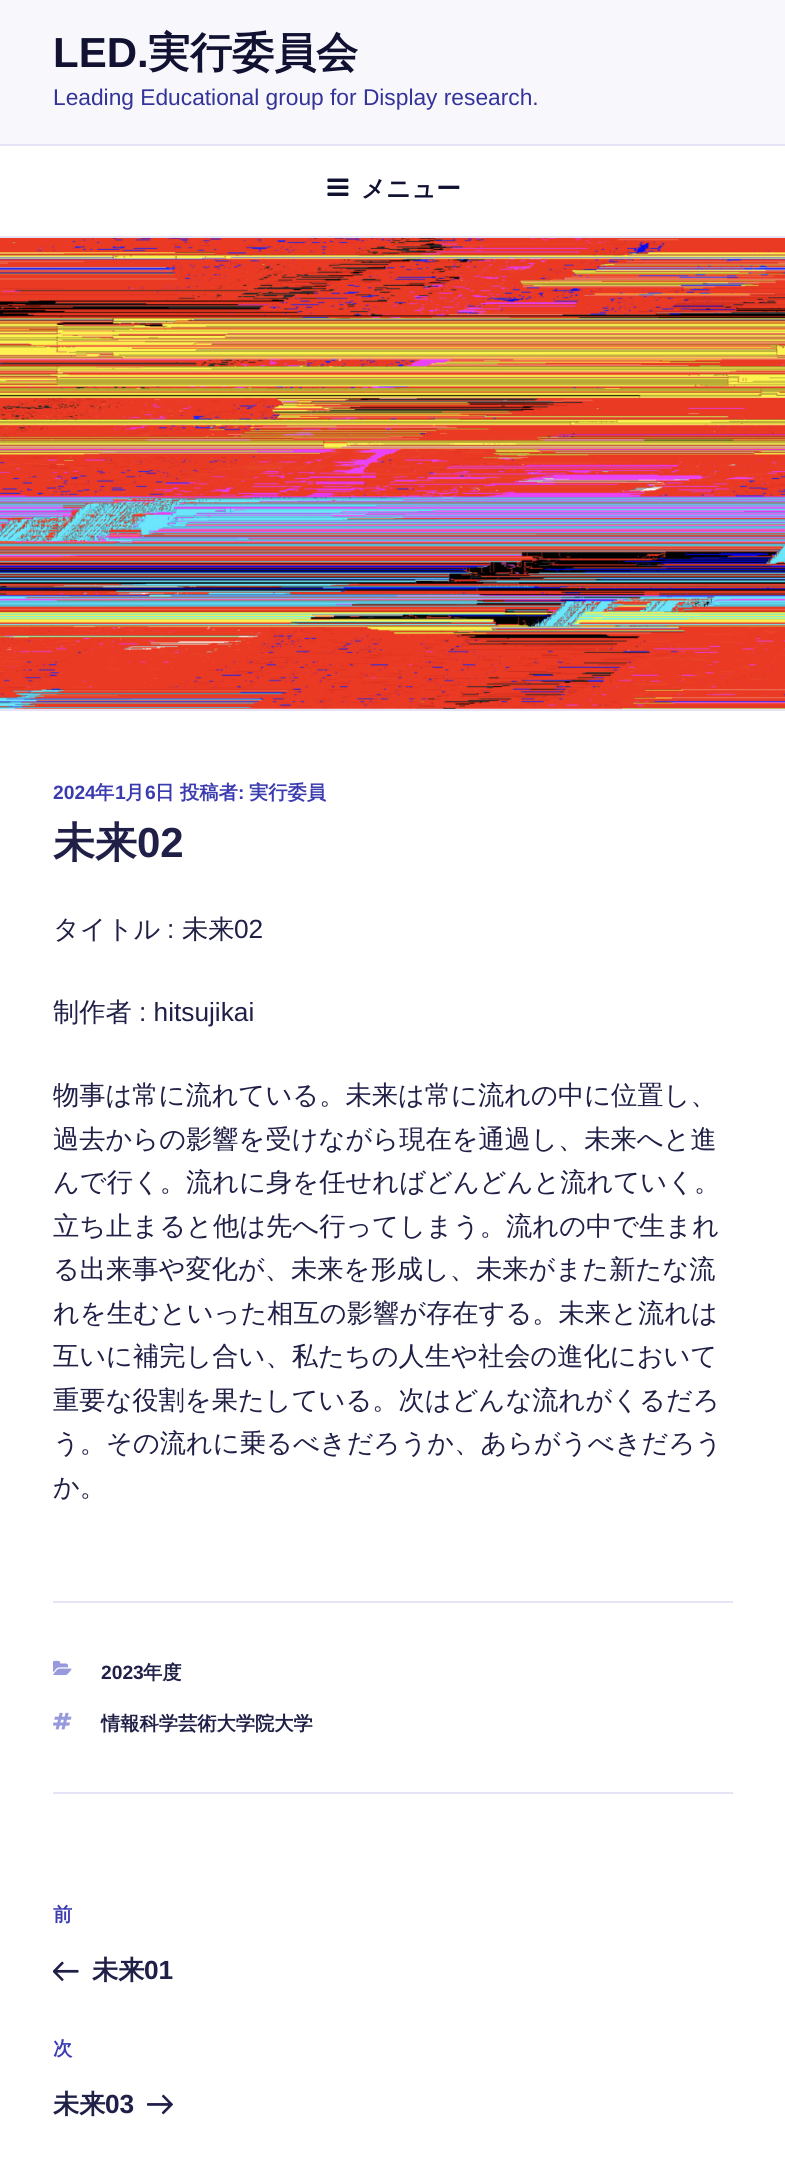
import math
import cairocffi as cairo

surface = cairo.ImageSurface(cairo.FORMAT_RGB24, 785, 2182)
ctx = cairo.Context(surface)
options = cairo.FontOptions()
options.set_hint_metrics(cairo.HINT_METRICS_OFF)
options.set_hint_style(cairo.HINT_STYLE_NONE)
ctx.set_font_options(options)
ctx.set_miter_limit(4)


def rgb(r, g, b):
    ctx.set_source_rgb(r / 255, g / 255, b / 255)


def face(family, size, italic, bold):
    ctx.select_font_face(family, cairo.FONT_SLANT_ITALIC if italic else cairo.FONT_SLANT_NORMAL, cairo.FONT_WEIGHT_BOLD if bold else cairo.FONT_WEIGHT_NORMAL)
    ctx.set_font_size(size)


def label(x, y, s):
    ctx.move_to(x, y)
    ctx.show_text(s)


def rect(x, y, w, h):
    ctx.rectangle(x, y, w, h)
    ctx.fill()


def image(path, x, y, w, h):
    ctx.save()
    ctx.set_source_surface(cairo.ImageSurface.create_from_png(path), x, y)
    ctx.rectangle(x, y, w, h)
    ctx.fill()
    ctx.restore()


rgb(255, 255, 255)
ctx.paint()
rgb(247, 247, 252)
rect(0, 0, 785, 144)
face('Liberation Sans', 42, 0, 1)
rgb(17, 17, 50)
label(53, 67, 'LED.')
face('WenQuanYi Zen Hei', 42, 0, 1)
label(148, 67, '実行委員会')
face('Liberation Sans', 22.75, 0, 0)
rgb(51, 51, 153)
label(53, 105, 'Leading Educational group for Display research.')
rgb(228, 228, 246)
rect(0, 144, 785, 2)
rect(0, 236, 785, 2)
image('image0.png', 327, 178, 22, 18)
face('WenQuanYi Zen Hei', 24.5, 0, 1)
rgb(17, 17, 50)
label(361, 197, 'メニュー')
rgb(228, 228, 246)
rect(0, 709, 785, 2)
image('image1.png', 0, 238, 785, 471)
face('Liberation Sans', 19.25, 0, 1)
rgb(59, 59, 176)
label(53, 799, '2024')
face('WenQuanYi Zen Hei', 19.25, 0, 1)
label(95, 799, '年')
face('Liberation Sans', 19.25, 0, 1)
label(115, 799, '1')
face('WenQuanYi Zen Hei', 19.25, 0, 1)
label(125, 799, '月')
face('Liberation Sans', 19.25, 0, 1)
label(145, 799, '6')
face('WenQuanYi Zen Hei', 19.25, 0, 1)
label(155, 799, '日')
label(180, 799, '投稿者')
face('Liberation Sans', 19.25, 0, 1)
label(238, 799, ':')
face('WenQuanYi Zen Hei', 19.25, 0, 1)
label(249, 799, '実行委員')
face('WenQuanYi Zen Hei', 42, 0, 1)
rgb(31, 31, 71)
label(53, 857, '未来')
face('Liberation Sans', 42, 0, 1)
label(137, 857, '02')
face('WenQuanYi Zen Hei Medium', 26.25, 0, 0)
label(53, 938, 'タイトル')
face('Liberation Sans', 26.25, 0, 0)
label(167, 938, ':')
face('WenQuanYi Zen Hei Medium', 26.25, 0, 0)
label(182, 938, '未来')
face('Liberation Sans', 26.25, 0, 0)
label(234, 938, '02')
face('WenQuanYi Zen Hei Medium', 26.25, 0, 0)
label(53, 1021, '制作者')
face('Liberation Sans', 26.25, 0, 0)
label(139, 1021, ': hitsujikai')
face('WenQuanYi Zen Hei Medium', 26.25, 0, 0)
label(53, 1104, '物事は常に流れている。未来は常に流れの中に位置し、')
label(53, 1148, '過去からの影響を受けながら現在を通過し、未来へと進')
label(53, 1191, 'んで行く。流れに身を任せればどんどんと流れていく。')
label(53, 1235, '立ち止まると他は先へ行ってしまう。流れの中で生まれ')
label(53, 1278, 'る出来事や変化が、未来を形成し、未来がまた新たな流')
label(53, 1322, 'れを生むといった相互の影響が存在する。未来と流れは')
label(53, 1365, '互いに補完し合い、私たちの人生や社会の進化において')
label(53, 1409, '重要な役割を果たしている。次はどんな流れがくるだろ')
label(53, 1452, 'う。その流れに乗るべきだろうか、あらがうべきだろう')
label(53, 1496, 'か。')
rgb(228, 228, 246)
rect(53, 1601, 680, 2)
rect(53, 1792, 680, 2)
image('image2.png', 53, 1660, 19, 16)
face('Liberation Sans', 19.25, 0, 1)
rgb(31, 31, 71)
label(101, 1679, '2023')
face('WenQuanYi Zen Hei', 19.25, 0, 1)
label(143, 1679, '年度')
image('image3.png', 53, 1712, 19, 18)
label(101, 1730, '情報科学芸術大学院大学')
rgb(59, 59, 176)
label(53, 1921, '前')
image('image4.png', 53, 1961, 26, 21)
face('WenQuanYi Zen Hei', 26.25, 0, 1)
rgb(31, 31, 71)
label(92, 1979, '未来')
face('Liberation Sans', 26.25, 0, 1)
label(144, 1979, '01')
face('WenQuanYi Zen Hei', 19.25, 0, 1)
rgb(59, 59, 176)
label(53, 2055, '次')
face('WenQuanYi Zen Hei', 26.25, 0, 1)
rgb(31, 31, 71)
label(53, 2113, '未来')
face('Liberation Sans', 26.25, 0, 1)
label(105, 2113, '03')
image('image5.png', 147, 2094, 26, 21)
surface.write_to_png('render.png')
